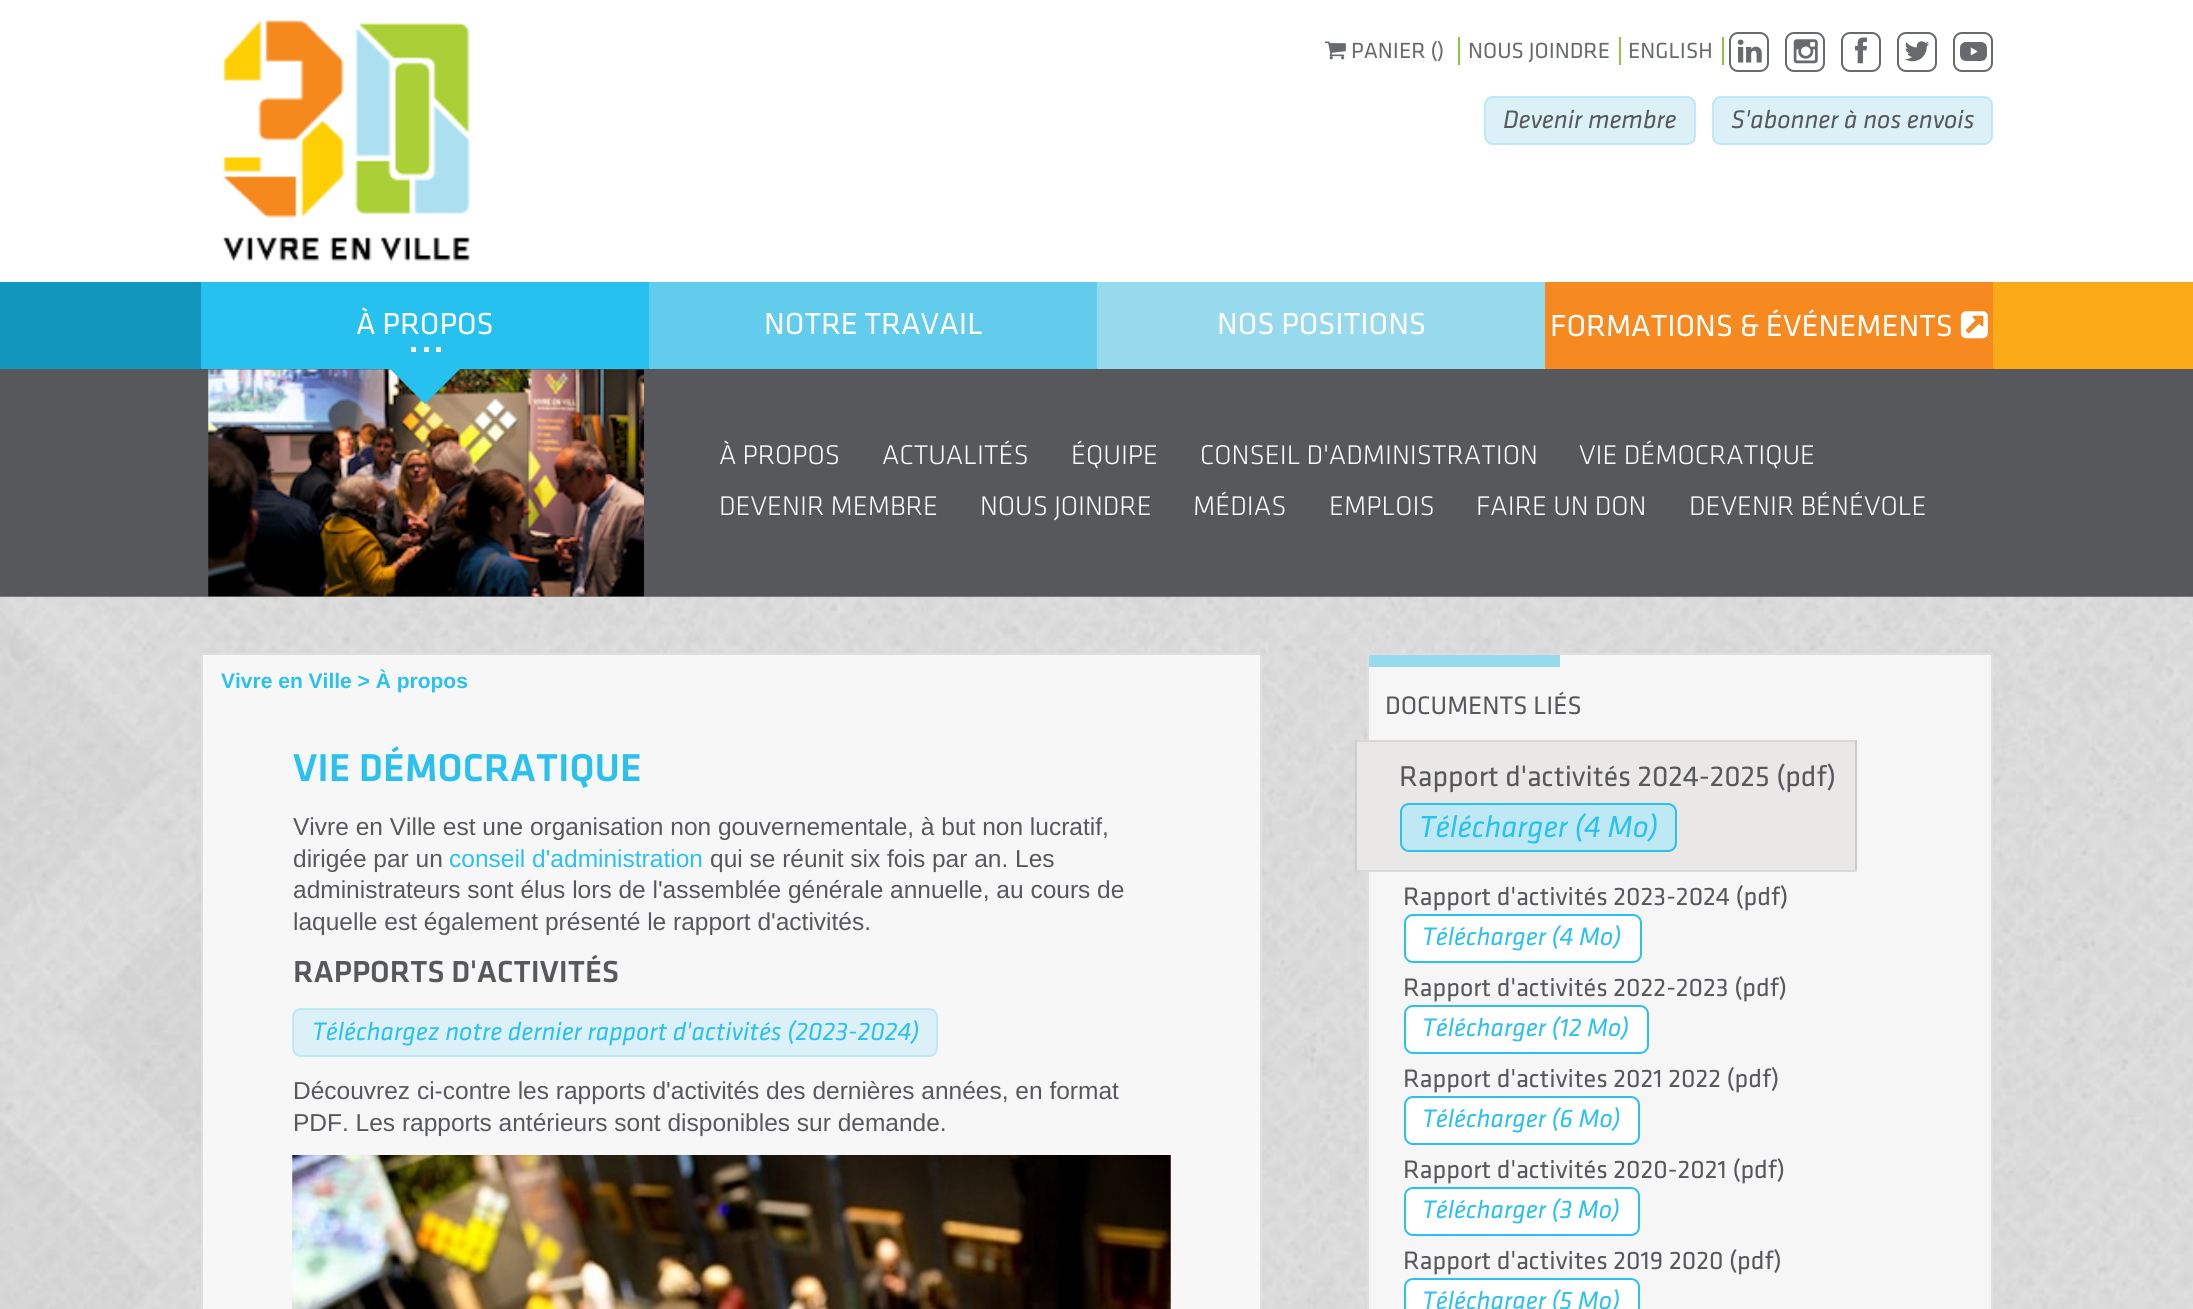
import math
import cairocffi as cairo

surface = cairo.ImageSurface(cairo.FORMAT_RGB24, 2193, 1309)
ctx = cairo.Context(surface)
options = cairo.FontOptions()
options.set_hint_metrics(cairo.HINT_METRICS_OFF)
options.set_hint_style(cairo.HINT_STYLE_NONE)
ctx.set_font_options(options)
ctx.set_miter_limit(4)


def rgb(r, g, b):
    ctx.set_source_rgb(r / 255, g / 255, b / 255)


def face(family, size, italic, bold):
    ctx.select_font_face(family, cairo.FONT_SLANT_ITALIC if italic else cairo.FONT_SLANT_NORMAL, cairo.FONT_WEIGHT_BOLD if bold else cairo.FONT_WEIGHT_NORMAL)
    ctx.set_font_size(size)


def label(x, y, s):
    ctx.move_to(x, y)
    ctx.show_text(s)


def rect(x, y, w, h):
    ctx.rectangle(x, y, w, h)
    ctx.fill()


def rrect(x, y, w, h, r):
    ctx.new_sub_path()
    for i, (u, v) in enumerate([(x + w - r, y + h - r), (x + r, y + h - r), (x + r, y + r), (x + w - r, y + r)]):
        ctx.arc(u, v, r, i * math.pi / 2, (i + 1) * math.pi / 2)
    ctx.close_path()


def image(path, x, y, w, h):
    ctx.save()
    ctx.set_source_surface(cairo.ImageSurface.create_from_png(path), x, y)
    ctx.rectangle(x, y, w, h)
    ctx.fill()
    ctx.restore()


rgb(255, 255, 255)
ctx.paint()
image('image0.png', 223, 20, 247, 242)
rgb(141, 198, 63)
rect(1458, 37, 2, 28)
image('image1.png', 1324, 41, 22, 19)
face('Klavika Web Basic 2', 22.75, 0, 0)
rgb(104, 107, 109)
label(1351, 58, 'PANIER ()')
label(1468, 58, 'NOUS JOINDRE')
rgb(141, 198, 63)
rect(1619, 37, 2, 28)
rgb(104, 107, 109)
label(1628, 58, 'ENGLISH')
rgb(141, 198, 63)
rect(1722, 37, 2, 28)
rrect(1730, 33, 38, 38, 8)
rgb(104, 107, 109)
ctx.stroke()
image('image2.png', 1737, 39, 25, 24)
rrect(1786, 33, 38, 38, 8)
ctx.stroke()
image('image3.png', 1793, 39, 25, 25)
rrect(1842, 33, 38, 38, 8)
ctx.stroke()
image('image4.png', 1855, 37, 12, 27)
rrect(1898, 33, 38, 38, 8)
ctx.stroke()
image('image5.png', 1905, 41, 25, 21)
image('image6.png', 1960, 42, 27, 19)
rrect(1954, 33, 38, 38, 8)
ctx.stroke()
rgb(219, 240, 247)
rrect(1485, 97, 210, 47, 8)
ctx.fill_preserve()
rgb(190, 233, 244)
ctx.stroke()
face('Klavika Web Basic', 26.25, 0, 0)
rgb(86, 88, 91)
label(1503, 128, 'Devenir membre')
rgb(219, 240, 247)
rrect(1713, 97, 279, 47, 8)
ctx.fill_preserve()
rgb(190, 233, 244)
ctx.stroke()
rgb(86, 88, 91)
label(1731, 128, 'S\'abonner à nos envois')
gradient = cairo.LinearGradient(0, 326, 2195, 325)
gradient.add_color_stop_rgba(0, 0.075, 0.588, 0.745, 1)
gradient.add_color_stop_rgba(0.5, 0.075, 0.588, 0.745, 1)
gradient.add_color_stop_rgba(0.53, 0.984, 0.671, 0.094, 1)
gradient.add_color_stop_rgba(1, 0.984, 0.671, 0.094, 1)
ctx.set_source(gradient)
rect(0, 282, 2193, 87)
rgb(39, 193, 240)
rect(201, 282, 448, 87)
face('Klavika Web Basic 2', 31.5, 0, 0)
rgb(255, 255, 255)
label(356, 334, 'À PROPOS')
rect(411, 347, 5, 5)
rect(424, 347, 5, 5)
rect(436, 347, 5, 5)
rgb(86, 88, 91)
rect(0, 369, 2193, 228)
image('image7.png', 208, 369, 436, 228)
rgb(39, 193, 240)
ctx.new_path()
ctx.move_to(390, 369)
ctx.line_to(460, 369)
ctx.line_to(425, 404)
ctx.close_path()
ctx.fill()
face('Klavika Web Basic Light', 28, 0, 0)
rgb(255, 255, 255)
label(719, 464, 'À PROPOS')
label(882, 464, 'ACTUALITÉS')
label(1071, 464, 'ÉQUIPE')
label(1200, 464, 'CONSEIL D\'ADMINISTRATION')
label(1579, 464, 'VIE DÉMOCRATIQUE')
label(719, 515, 'DEVENIR MEMBRE')
label(980, 515, 'NOUS JOINDRE')
label(1193, 515, 'MÉDIAS')
label(1329, 515, 'EMPLOIS')
label(1476, 515, 'FAIRE UN DON')
label(1689, 515, 'DEVENIR BÉNÉVOLE')
rgb(98, 204, 237)
rect(649, 282, 448, 87)
face('Klavika Web Basic 2', 31.5, 0, 0)
rgb(255, 255, 255)
label(764, 334, 'NOTRE TRAVAIL')
rgb(151, 217, 237)
rect(1097, 282, 448, 87)
rgb(255, 255, 255)
label(1217, 334, 'NOS POSITIONS')
rgb(246, 137, 31)
rect(1545, 282, 448, 87)
rgb(255, 255, 255)
label(1550, 336, 'FORMATIONS & ÉVÉNEMENTS')
image('image8.png', 1960, 311, 28, 28)
image('image9.png', 0, 596, 2193, 713)
rgb(248, 247, 247)
ctx.rectangle(202, 654, 1059, 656)
ctx.fill_preserve()
rgb(223, 222, 222)
ctx.stroke()
face('Liberation Sans', 21, 0, 1)
rgb(42, 193, 239)
label(221, 688, 'Vivre en Ville > À propos')
face('Klavika Web Basic Medium', 40.25, 0, 0)
label(293, 781, 'VIE DÉMOCRATIQUE')
face('Liberation Sans', 24.5, 0, 0)
rgb(86, 88, 91)
label(293, 835, 'Vivre en Ville est une organisation non gouvernementale, à but non lucratif,')
label(293, 867, 'dirigée par un')
rgb(42, 193, 239)
label(449, 867, 'conseil d\'administration')
rgb(86, 88, 91)
label(710, 867, 'qui se réunit six fois par an. Les')
label(293, 898, 'administrateurs sont élus lors de l\'assemblée générale annuelle, au cours de')
label(293, 930, 'laquelle est également présenté le rapport d\'activités.')
face('Klavika Web Basic Medium', 31.5, 0, 0)
label(293, 982, 'RAPPORTS D\'ACTIVITÉS')
rgb(219, 240, 247)
rrect(293, 1009, 644, 47, 8)
ctx.fill_preserve()
rgb(190, 233, 244)
ctx.stroke()
face('Klavika Web Basic', 26.25, 0, 0)
rgb(42, 193, 239)
label(312, 1040, 'Téléchargez notre dernier rapport d\'activités (2023-2024)')
face('Liberation Sans', 24.5, 0, 0)
rgb(86, 88, 91)
label(293, 1099, 'Découvrez ci-contre les rapports d\'activités des dernières années, en format')
label(293, 1131, 'PDF. Les rapports antérieurs sont disponibles sur demande.')
image('image10.png', 292, 1155, 879, 154)
rgb(247, 246, 246)
rect(1369, 655, 622, 654)
rgb(151, 217, 237)
rect(1369, 655, 191, 12)
ctx.rectangle(1368, 654, 624, 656)
rgb(223, 222, 222)
ctx.stroke()
face('Klavika Web Basic 2', 26.25, 0, 0)
rgb(86, 88, 91)
label(1385, 714, 'DOCUMENTS LIÉS')
rgb(234, 231, 231)
rect(1357, 742, 498, 128)
rgb(217, 216, 216)
rect(1355, 740, 502, 2)
rgb(204, 204, 204)
rect(1855, 740, 2, 132)
rgb(217, 216, 216)
rect(1355, 870, 502, 2)
rgb(204, 204, 204)
rect(1355, 740, 2, 132)
face('Klavika Web Basic 2', 29.75, 0, 0)
rgb(86, 88, 91)
label(1399, 786, 'Rapport d\'activités 2024-2025 (pdf)')
rgb(190, 233, 244)
rrect(1401, 804, 275, 47, 8)
ctx.fill_preserve()
rgb(42, 193, 239)
ctx.stroke()
face('Klavika Web Basic', 31.5, 0, 0)
label(1419, 837, 'Télécharger (4 Mo)')
face('Klavika Web Basic 2', 26.25, 0, 0)
rgb(86, 88, 91)
label(1403, 905, 'Rapport d\'activités 2023-2024 (pdf)')
rgb(255, 255, 255)
rrect(1405, 915, 236, 47, 8)
ctx.fill_preserve()
rgb(42, 193, 239)
ctx.stroke()
face('Klavika Web Basic', 26.25, 0, 0)
label(1422, 945, 'Télécharger (4 Mo)')
face('Klavika Web Basic 2', 26.25, 0, 0)
rgb(86, 88, 91)
label(1403, 996, 'Rapport d\'activités 2022-2023 (pdf)')
rgb(255, 255, 255)
rrect(1405, 1006, 243, 47, 8)
ctx.fill_preserve()
rgb(42, 193, 239)
ctx.stroke()
face('Klavika Web Basic', 26.25, 0, 0)
label(1422, 1036, 'Télécharger (12 Mo)')
face('Klavika Web Basic 2', 26.25, 0, 0)
rgb(86, 88, 91)
label(1403, 1087, 'Rapport d\'activites 2021 2022 (pdf)')
rgb(255, 255, 255)
rrect(1405, 1097, 234, 47, 8)
ctx.fill_preserve()
rgb(42, 193, 239)
ctx.stroke()
face('Klavika Web Basic', 26.25, 0, 0)
label(1422, 1127, 'Télécharger (6 Mo)')
face('Klavika Web Basic 2', 26.25, 0, 0)
rgb(86, 88, 91)
label(1403, 1178, 'Rapport d\'activités 2020-2021 (pdf)')
rgb(255, 255, 255)
rrect(1405, 1188, 234, 47, 8)
ctx.fill_preserve()
rgb(42, 193, 239)
ctx.stroke()
face('Klavika Web Basic', 26.25, 0, 0)
label(1422, 1218, 'Télécharger (3 Mo)')
face('Klavika Web Basic 2', 26.25, 0, 0)
rgb(86, 88, 91)
label(1403, 1269, 'Rapport d\'activites 2019 2020 (pdf)')
rgb(255, 255, 255)
rrect(1405, 1279, 234, 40, 8)
ctx.fill_preserve()
rgb(42, 193, 239)
ctx.stroke()
face('Klavika Web Basic', 26.25, 0, 0)
label(1422, 1309, 'Télécharger (5 Mo)')
surface.write_to_png('render.png')
